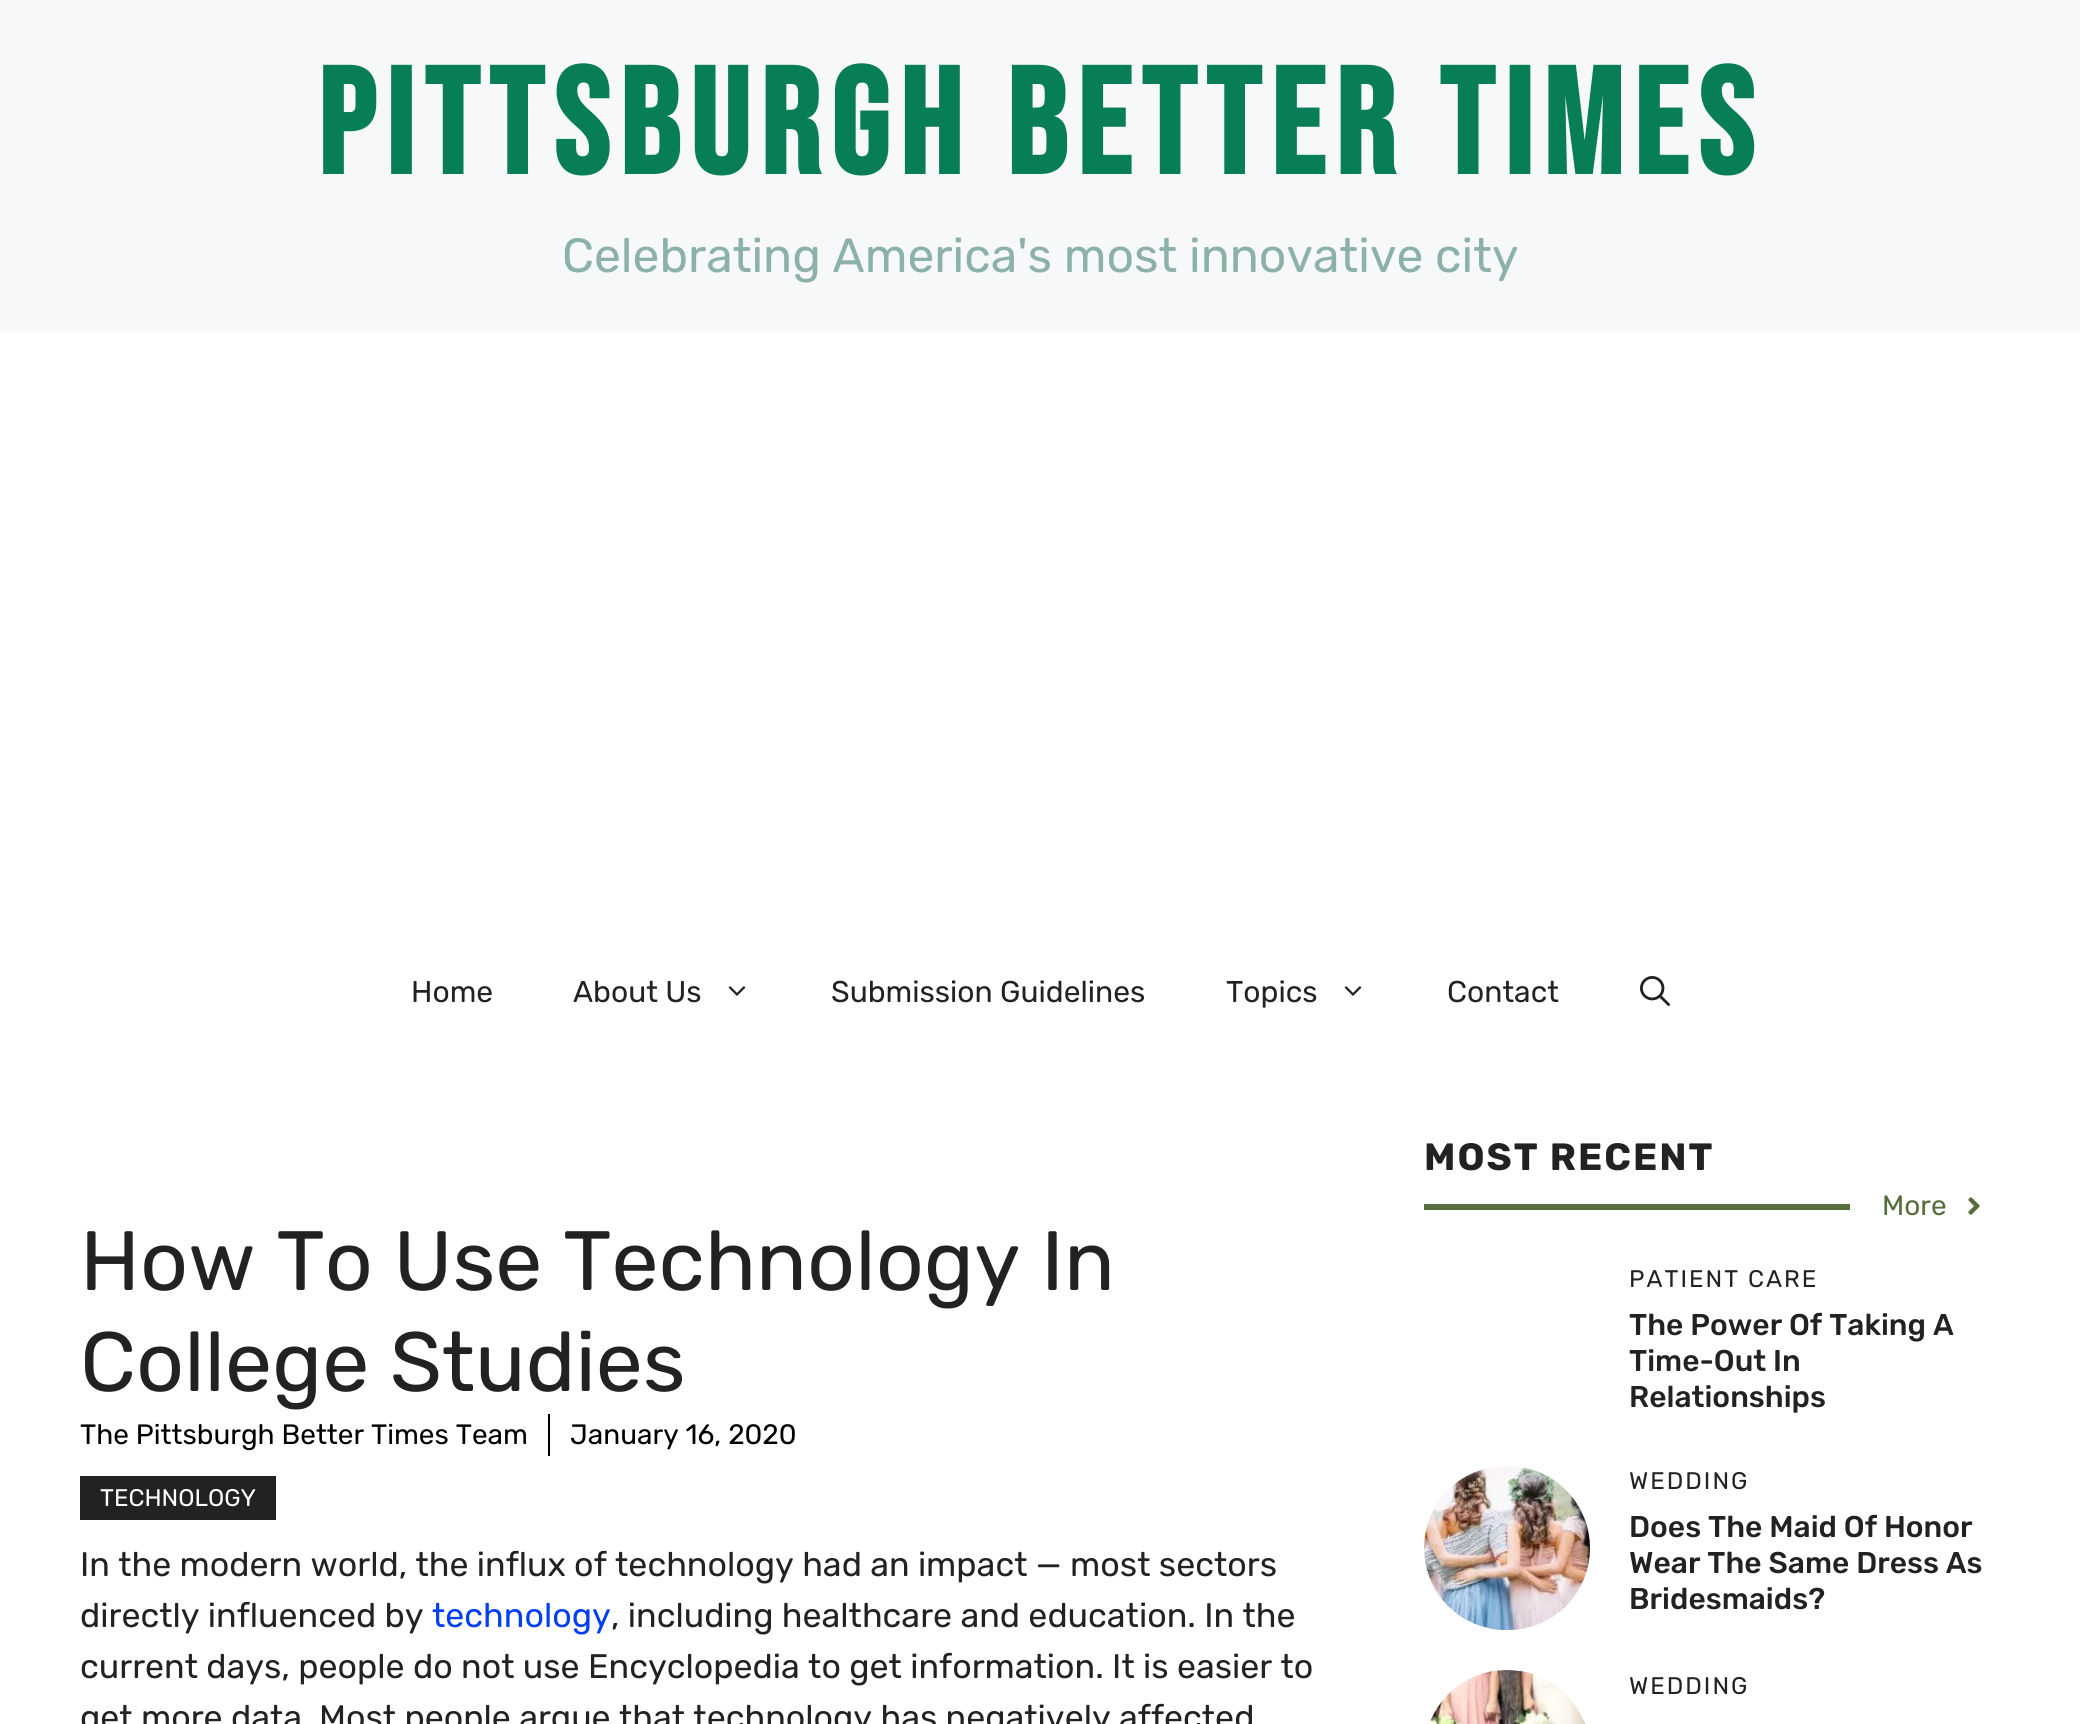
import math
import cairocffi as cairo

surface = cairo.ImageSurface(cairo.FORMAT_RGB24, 2080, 1724)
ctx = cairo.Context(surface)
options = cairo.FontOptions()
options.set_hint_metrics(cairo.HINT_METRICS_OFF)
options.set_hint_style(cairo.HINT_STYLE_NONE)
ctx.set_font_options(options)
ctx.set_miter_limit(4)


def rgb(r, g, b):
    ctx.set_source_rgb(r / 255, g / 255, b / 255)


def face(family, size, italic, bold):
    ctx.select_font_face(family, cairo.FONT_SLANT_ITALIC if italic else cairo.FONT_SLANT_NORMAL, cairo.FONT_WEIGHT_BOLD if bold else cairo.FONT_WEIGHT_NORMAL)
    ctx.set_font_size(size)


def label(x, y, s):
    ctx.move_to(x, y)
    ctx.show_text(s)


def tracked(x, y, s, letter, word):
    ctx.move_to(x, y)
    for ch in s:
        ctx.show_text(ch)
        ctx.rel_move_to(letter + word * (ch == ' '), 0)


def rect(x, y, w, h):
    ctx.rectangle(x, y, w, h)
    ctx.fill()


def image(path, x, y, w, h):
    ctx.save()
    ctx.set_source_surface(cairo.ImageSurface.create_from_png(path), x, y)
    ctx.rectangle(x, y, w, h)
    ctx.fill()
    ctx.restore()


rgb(255, 255, 255)
ctx.paint()
rgb(247, 248, 249)
rect(0, 0, 2080, 332)
face('Bebas Neue', 150, 0, 1)
rgb(8, 126, 87)
tracked(317, 174, 'Pittsburgh Better Times', 10, 0)
face('Rubik Light', 48, 0, 0)
rgb(140, 177, 169)
label(562, 272, 'Celebrating America\'s most innovative city')
face('Rubik Light', 30, 0, 0)
rgb(34, 34, 34)
label(411, 1002, 'Home')
label(573, 1002, 'About Us')
image('image0.png', 728, 986, 18, 10)
label(831, 1002, 'Submission Guidelines')
label(1226, 1002, 'Topics')
image('image0.png', 1344, 986, 18, 10)
label(1447, 1002, 'Contact')
image('image1.png', 1640, 976, 30, 30)
face('Rubik Light', 84, 0, 0)
label(80, 1290, 'How To Use Technology In')
label(80, 1391, 'College Studies')
rgb(0, 0, 0)
rect(548, 1414, 2, 42)
face('Rubik Light', 28, 0, 0)
label(80, 1444, 'The Pittsburgh Better Times Team')
label(570, 1444, 'January 16, 2020')
rgb(34, 34, 34)
rect(80, 1476, 196, 44)
face('Rubik Light', 24, 0, 0)
rgb(255, 255, 255)
label(100, 1506, 'TECHNOLOGY')
face('Rubik Light', 34, 0, 0)
rgb(34, 34, 34)
label(80, 1576, 'In the modern world, the influx of technology had an impact — most sectors')
label(80, 1627, 'directly influenced by')
rgb(1, 62, 247)
label(432, 1627, 'technology')
rgb(34, 34, 34)
label(611, 1627, ', including healthcare and education. In the')
label(80, 1678, 'current days, people do not use Encyclopedia to get information. It is easier to')
label(80, 1729, 'get more data. Most people argue that technology has negatively affected')
face('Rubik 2 Light', 38, 0, 0)
tracked(1424, 1170, 'MOST RECENT', 2, 0)
rgb(86, 110, 61)
rect(1424, 1204, 426, 6)
face('Rubik Light', 28, 0, 0)
label(1882, 1215, 'More')
image('image2.png', 1968, 1197, 12, 18)
face('Rubik Light', 24, 0, 0)
rgb(34, 34, 34)
tracked(1629, 1287, 'PATIENT CARE', 2, 0)
face('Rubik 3 Light', 30, 0, 0)
label(1629, 1335, 'The Power Of Taking A')
label(1629, 1371, 'Time-Out In')
label(1629, 1407, 'Relationships')
image('image3.png', 1424, 1466, 166, 164)
face('Rubik Light', 24, 0, 0)
tracked(1629, 1489, 'WEDDING', 2, 0)
face('Rubik 3 Light', 30, 0, 0)
label(1629, 1537, 'Does The Maid Of Honor')
label(1629, 1573, 'Wear The Same Dress As')
label(1629, 1609, 'Bridesmaids?')
image('image4.png', 1429, 1670, 156, 54)
face('Rubik Light', 24, 0, 0)
tracked(1629, 1694, 'WEDDING', 2, 0)
surface.write_to_png('render.png')
